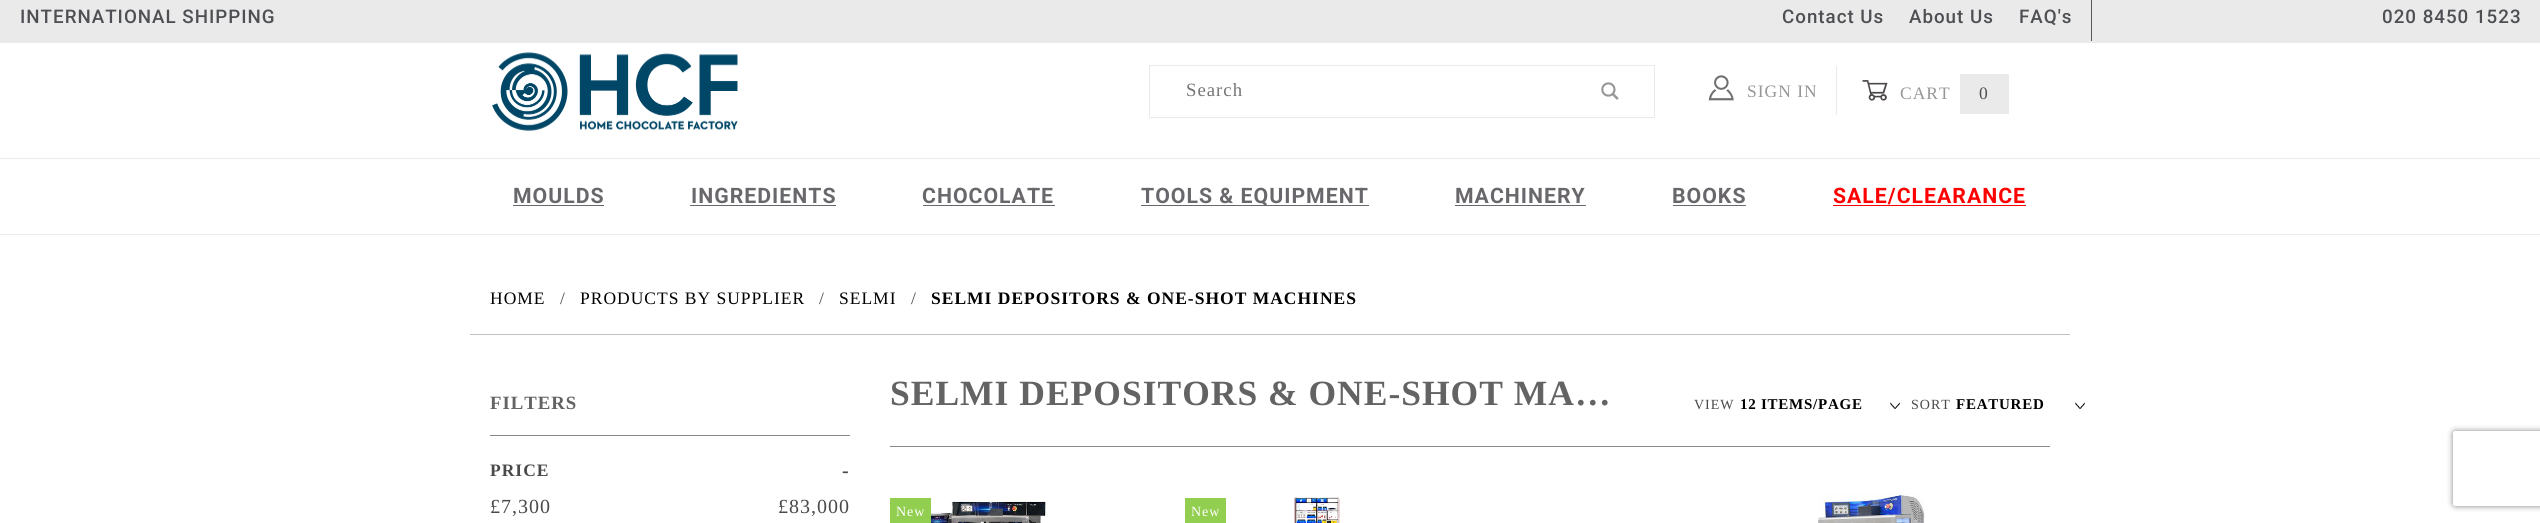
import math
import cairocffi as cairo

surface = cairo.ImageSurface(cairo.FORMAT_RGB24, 2540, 523)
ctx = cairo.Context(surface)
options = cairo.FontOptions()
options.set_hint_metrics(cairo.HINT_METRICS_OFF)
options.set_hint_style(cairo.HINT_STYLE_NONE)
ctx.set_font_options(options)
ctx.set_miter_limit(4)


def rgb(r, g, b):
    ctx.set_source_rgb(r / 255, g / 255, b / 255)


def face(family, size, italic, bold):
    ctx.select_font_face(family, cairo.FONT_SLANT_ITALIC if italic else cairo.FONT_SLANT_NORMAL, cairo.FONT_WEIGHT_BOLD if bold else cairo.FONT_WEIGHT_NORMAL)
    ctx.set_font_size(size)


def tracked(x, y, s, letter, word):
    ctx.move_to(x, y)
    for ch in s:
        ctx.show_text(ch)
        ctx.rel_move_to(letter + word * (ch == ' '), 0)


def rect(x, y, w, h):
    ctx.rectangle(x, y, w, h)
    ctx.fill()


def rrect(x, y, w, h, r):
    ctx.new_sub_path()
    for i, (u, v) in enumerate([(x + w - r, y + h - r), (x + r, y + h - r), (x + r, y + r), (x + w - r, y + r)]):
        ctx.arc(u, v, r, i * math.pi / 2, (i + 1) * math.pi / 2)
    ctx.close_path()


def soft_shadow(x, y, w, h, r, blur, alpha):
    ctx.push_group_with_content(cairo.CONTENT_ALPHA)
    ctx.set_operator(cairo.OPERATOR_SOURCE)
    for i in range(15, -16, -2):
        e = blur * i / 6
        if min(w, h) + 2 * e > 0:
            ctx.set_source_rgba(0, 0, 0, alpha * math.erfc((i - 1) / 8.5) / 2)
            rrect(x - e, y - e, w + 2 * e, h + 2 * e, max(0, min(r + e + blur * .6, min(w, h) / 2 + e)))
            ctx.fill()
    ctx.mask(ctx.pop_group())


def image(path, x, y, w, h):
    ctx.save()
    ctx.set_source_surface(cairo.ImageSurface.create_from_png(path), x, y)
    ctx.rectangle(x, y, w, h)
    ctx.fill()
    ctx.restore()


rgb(255, 255, 255)
ctx.paint()
rgb(234, 234, 234)
rect(0, 158, 2540, 1)
rect(0, 0, 2540, 43)
face('Roboto Medium', 18.75, 0, 0)
rgb(77, 79, 83)
tracked(20, 23, 'INTERNATIONAL SHIPPING', 1, 0)
tracked(1782, 23, 'Contact Us', 1, 0)
tracked(1909, 23, 'About Us', 1, 0)
tracked(2019, 23, 'FAQ\'s', 1, 0)
rgb(90, 90, 90)
rect(2091, 0, 1, 41)
rgb(77, 79, 83)
tracked(2382, 23, '020 8450 1523', 1, 0)
image('image0.png', 492, 52, 246, 79)
ctx.rectangle(1149.5, 65.5, 505, 52)
rgb(234, 234, 234)
ctx.set_line_width(1)
ctx.stroke()
face('Liberation Serif', 18.75, 0, 0)
rgb(117, 117, 117)
tracked(1186, 96, 'Search', 1, 0)
image('image1.png', 1601, 82, 18, 18)
rgb(234, 234, 234)
rect(1836, 66, 1, 49)
image('image2.png', 1708, 75, 26, 26)
face('Liberation Serif', 17.5, 0, 0)
rgb(152, 151, 151)
tracked(1747, 97, 'SIGN IN', 1, 0)
image('image3.png', 1862, 80, 26, 21)
tracked(1900, 99, 'CART', 1, 0)
rgb(234, 234, 234)
rect(1960, 74, 49, 40)
rgb(77, 79, 83)
tracked(1979, 99, '0', 1, 0)
rgb(235, 235, 235)
rect(0, 234, 2540, 1)
face('Roboto', 21.25, 0, 1)
rgb(105, 103, 107)
tracked(513, 203, 'MOULDS', 1, 0)
rect(513, 205, 91, 1)
tracked(691, 203, 'INGREDIENTS', 1, 0)
rect(690, 205, 146, 1)
tracked(922, 203, 'CHOCOLATE', 1, 0)
rect(923, 205, 132, 1)
rect(1141, 205, 228, 1)
tracked(1141, 203, 'TOOLS & EQUIPMENT', 1, 0)
tracked(1455, 203, 'MACHINERY', 1, 0)
rect(1455, 205, 131, 1)
tracked(1672, 203, 'BOOKS', 1, 0)
rect(1673, 205, 73, 1)
rgb(255, 0, 0)
tracked(1833, 203, 'SALE/CLEARANCE', 1, 0)
rect(1833, 205, 193, 1)
rgb(192, 192, 192)
rect(470, 334, 1600, 1)
face('Liberation Serif', 17.5, 0, 0)
rgb(0, 0, 0)
tracked(490, 304, 'HOME', 1, 0)
rgb(74, 74, 74)
tracked(560, 304, '/', 1, 0)
rgb(0, 0, 0)
tracked(580, 304, 'PRODUCTS BY SUPPLIER', 1, 0)
rgb(74, 74, 74)
tracked(819, 304, '/', 1, 0)
rgb(0, 0, 0)
tracked(839, 304, 'SELMI', 1, 0)
rgb(74, 74, 74)
tracked(911, 304, '/', 1, 0)
face('Liberation Serif', 17.5, 0, 1)
rgb(0, 0, 0)
tracked(931, 304, 'SELMI DEPOSITORS & ONE-SHOT MACHINES', 1, 0)
face('Liberation Serif', 18.75, 0, 1)
rgb(99, 99, 99)
tracked(490, 409, 'FILTERS', 1, 0)
rgb(136, 136, 136)
rect(490, 435, 360, 1)
face('Liberation Serif', 17.5, 0, 1)
rgb(74, 74, 74)
tracked(490, 476, 'PRICE', 1, 0)
face('Liberation Serif', 20, 0, 1)
tracked(842, 477, '-', 1, 0)
face('Liberation Serif', 20, 0, 0)
tracked(490, 513, '£7,300', 1, 0)
tracked(778, 513, '£83,000', 1, 0)
face('Liberation Serif', 35.5, 0, 1)
rgb(99, 99, 99)
tracked(890, 405, 'SELMI DEPOSITORS & ONE-SHOT MA…', 1, 0)
face('Liberation Serif', 14, 0, 0)
rgb(74, 74, 74)
tracked(1694, 409, 'VIEW', 1, 0)
face('Liberation Serif', 15, 0, 1)
rgb(0, 0, 0)
tracked(1740, 409, '12 ITEMS/PAGE', 0.75, 0)
image('image4.png', 1890, 402, 10, 7)
face('Liberation Serif', 14, 0, 0)
rgb(74, 74, 74)
tracked(1911, 409, 'SORT', 1, 0)
face('Liberation Serif', 15, 0, 1)
rgb(0, 0, 0)
tracked(1956, 409, 'FEATURED', 0.75, 0)
image('image5.png', 2075, 402, 10, 7)
rgb(136, 136, 136)
rect(890, 446, 1160, 1)
rgb(146, 207, 80)
rect(890, 498, 41, 25)
face('Liberation Serif', 14, 0, 0)
rgb(255, 255, 255)
tracked(896, 516, 'New', 1, 0)
image('image6.png', 931, 500, 117, 23)
rgb(146, 207, 80)
rect(1185, 498, 41, 25)
rgb(255, 255, 255)
tracked(1191, 516, 'New', 1, 0)
image('image7.png', 1294, 497, 46, 26)
image('image8.png', 1818, 493, 107, 30)
ctx.save()
ctx.set_fill_rule(cairo.FILL_RULE_EVEN_ODD)
ctx.new_path()
ctx.move_to(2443, 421)
ctx.line_to(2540, 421)
ctx.line_to(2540, 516)
ctx.line_to(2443, 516)
ctx.close_path()
ctx.move_to(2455.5, 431)
ctx.line_to(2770.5, 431)
ctx.curve_to(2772, 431, 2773, 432, 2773, 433.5)
ctx.line_to(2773, 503.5)
ctx.curve_to(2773, 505, 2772, 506, 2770.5, 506)
ctx.line_to(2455.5, 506)
ctx.curve_to(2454, 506, 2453, 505, 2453, 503.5)
ctx.line_to(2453, 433.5)
ctx.curve_to(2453, 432, 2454, 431, 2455.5, 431)
ctx.close_path()
ctx.clip()
rgb(128, 128, 128)
soft_shadow(2453, 431, 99, 75, 2.5, 3, 1)
ctx.restore()
surface.write_to_png('render.png')
